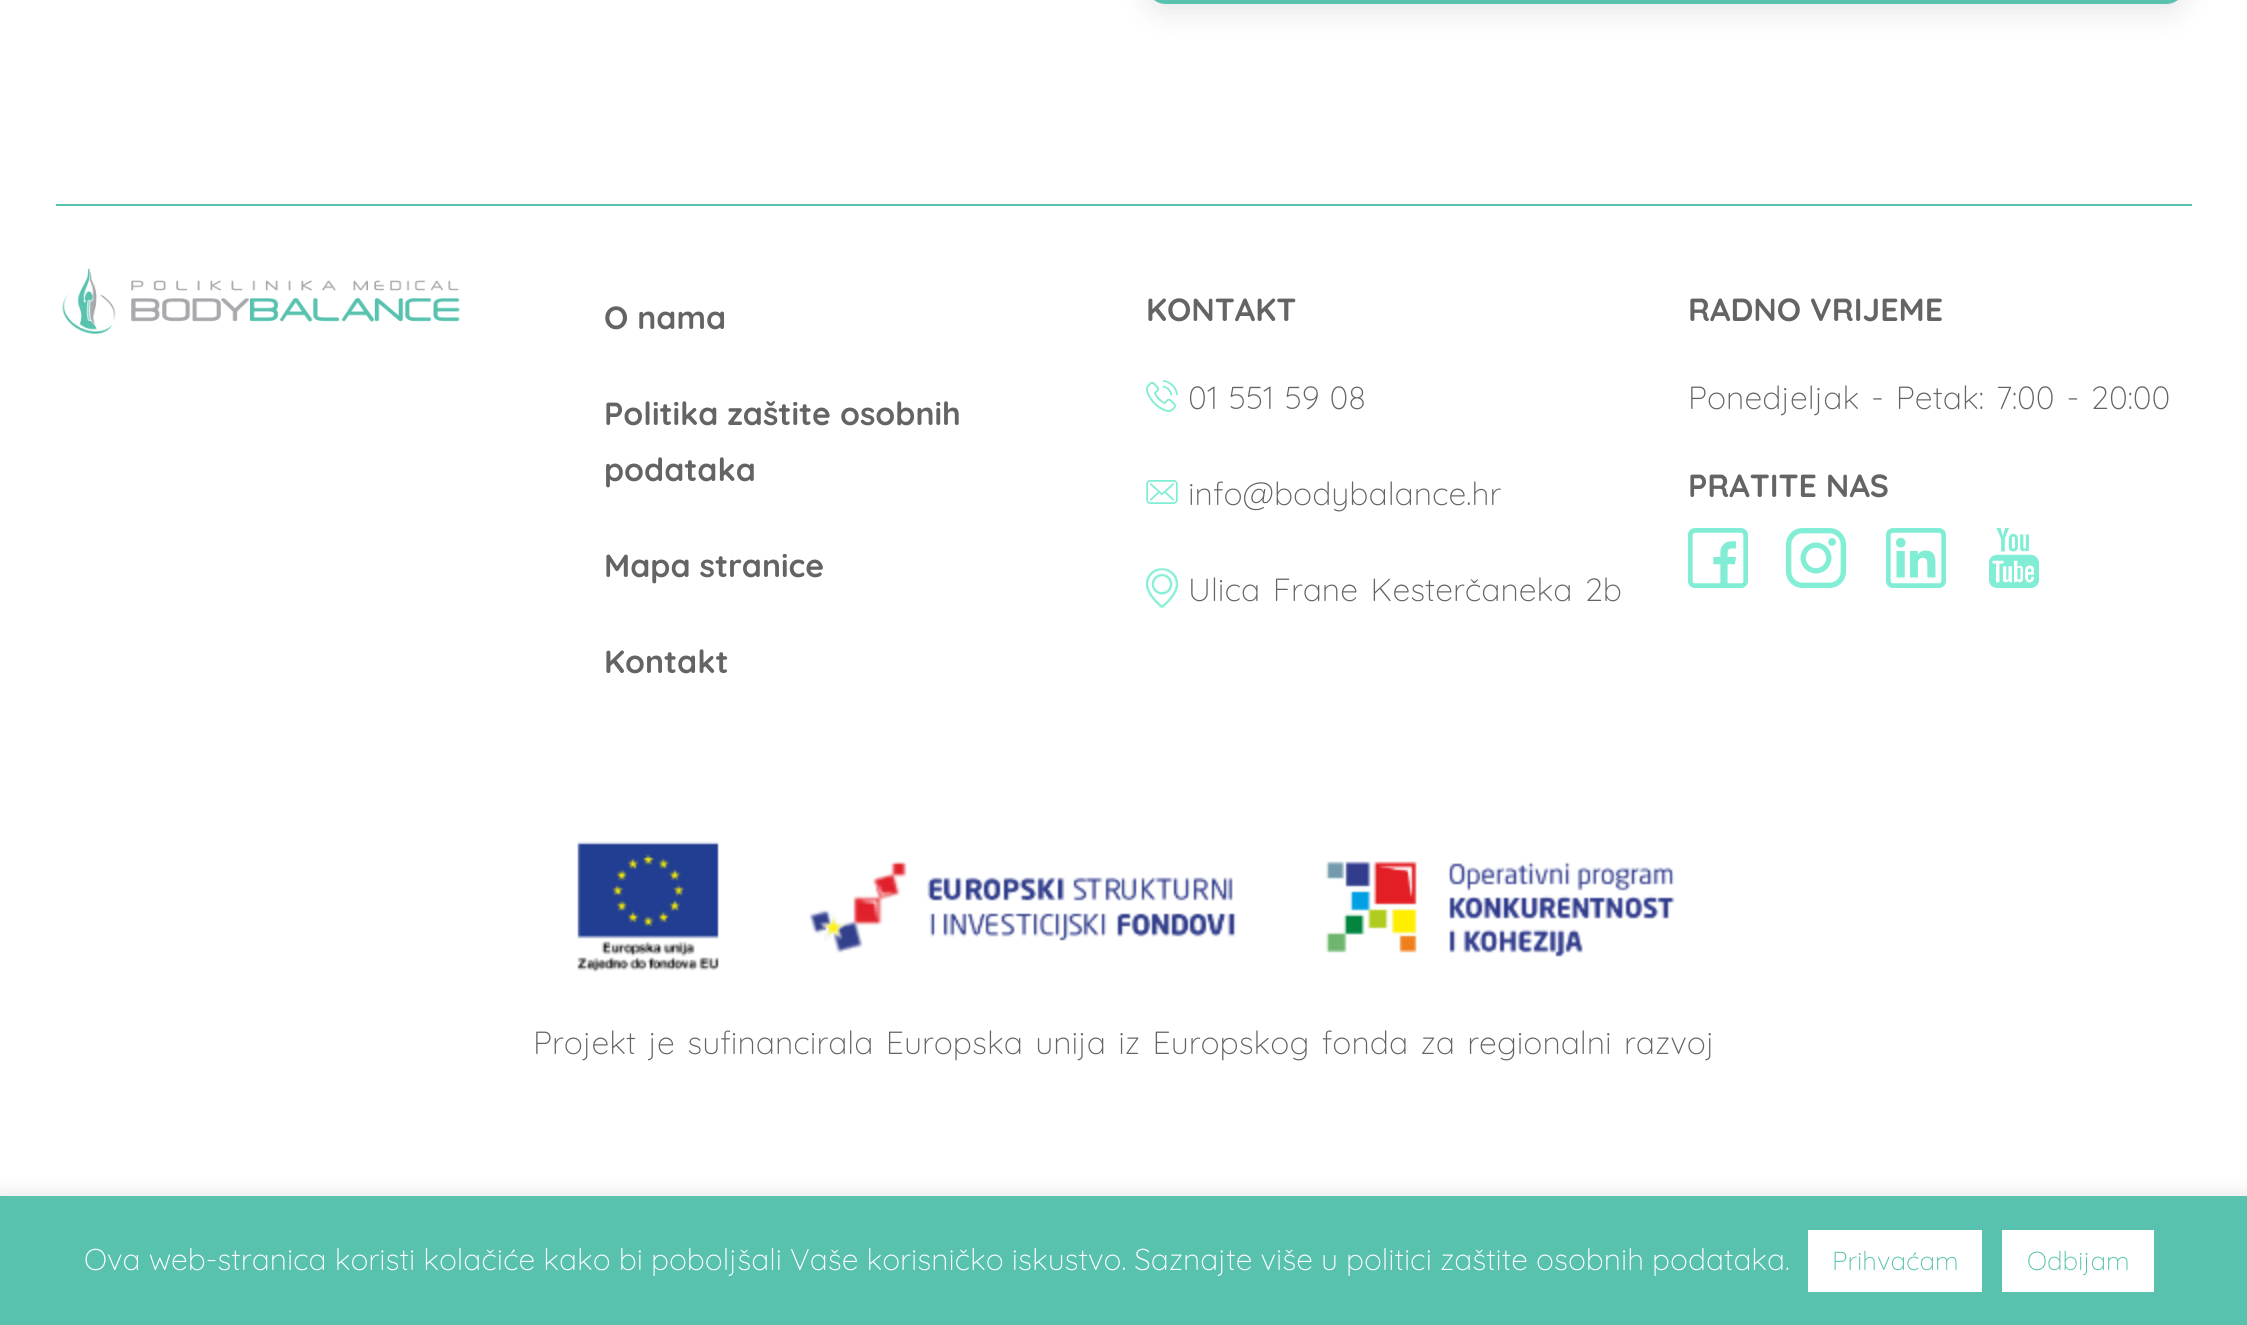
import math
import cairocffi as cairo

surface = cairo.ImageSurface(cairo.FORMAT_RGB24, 2247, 1325)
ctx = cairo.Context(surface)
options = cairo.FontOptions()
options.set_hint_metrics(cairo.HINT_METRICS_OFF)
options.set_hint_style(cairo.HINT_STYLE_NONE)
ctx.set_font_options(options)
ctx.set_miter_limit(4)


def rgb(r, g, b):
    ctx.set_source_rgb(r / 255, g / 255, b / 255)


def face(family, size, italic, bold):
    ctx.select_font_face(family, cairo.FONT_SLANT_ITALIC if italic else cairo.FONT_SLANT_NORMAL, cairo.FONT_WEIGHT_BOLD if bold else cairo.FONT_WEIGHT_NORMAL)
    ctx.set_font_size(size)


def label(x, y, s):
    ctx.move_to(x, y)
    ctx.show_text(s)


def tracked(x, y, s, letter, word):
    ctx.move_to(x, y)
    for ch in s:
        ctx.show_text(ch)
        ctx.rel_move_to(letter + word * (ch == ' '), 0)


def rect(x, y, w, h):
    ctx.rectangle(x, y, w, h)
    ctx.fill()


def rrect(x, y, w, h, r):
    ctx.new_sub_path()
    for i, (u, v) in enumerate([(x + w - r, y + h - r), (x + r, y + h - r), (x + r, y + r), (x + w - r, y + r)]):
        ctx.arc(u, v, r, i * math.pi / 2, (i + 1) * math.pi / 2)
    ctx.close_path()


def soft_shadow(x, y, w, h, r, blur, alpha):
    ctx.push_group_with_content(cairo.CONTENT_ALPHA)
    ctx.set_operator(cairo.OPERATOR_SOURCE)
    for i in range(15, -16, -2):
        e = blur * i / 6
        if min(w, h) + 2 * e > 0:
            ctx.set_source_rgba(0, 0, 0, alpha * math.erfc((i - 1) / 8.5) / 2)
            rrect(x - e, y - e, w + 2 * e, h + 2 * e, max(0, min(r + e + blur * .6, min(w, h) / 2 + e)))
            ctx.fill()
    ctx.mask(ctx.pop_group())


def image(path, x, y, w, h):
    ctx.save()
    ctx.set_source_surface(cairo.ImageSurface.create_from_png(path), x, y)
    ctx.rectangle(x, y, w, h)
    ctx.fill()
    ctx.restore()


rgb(255, 255, 255)
ctx.paint()
rgb(0, 0, 0)
soft_shadow(1146, -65, 1040, 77, 20, 15, 0.1)
rgb(88, 194, 175)
rrect(1146, -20, 1040, 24, 20)
ctx.fill()
rect(56, 204, 2136, 2)
image('image0.png', 62, 268, 398, 66)
face('Quicksand', 32, 0, 1)
rgb(100, 100, 100)
label(604, 329, 'O nama')
label(604, 425, 'Politika zaštite osobnih')
label(604, 481, 'podataka')
label(604, 577, 'Mapa stranice')
label(604, 673, 'Kontakt')
label(1146, 321, 'KONTAKT')
image('image1.png', 1146, 380, 32, 32)
face('Quicksand Light', 32, 0, 0)
tracked(1188, 409, '01 551 59 08', 0, 1.5)
image('image2.png', 1146, 480, 32, 24)
label(1188, 505, 'info@bodybalance.hr')
image('image3.png', 1146, 568, 32, 40)
tracked(1188, 601, 'Ulica Frane Kesterčaneka 2b', 0, 4)
face('Quicksand', 32, 0, 1)
label(1688, 321, 'RADNO VRIJEME')
face('Quicksand Light', 32, 0, 0)
tracked(1688, 409, 'Ponedjeljak - Petak: 7:00 - 20:00', 0, 3.5)
face('Quicksand', 32, 0, 1)
label(1688, 497, 'PRATITE NAS')
image('image4.png', 1688, 528, 60, 60)
image('image5.png', 1786, 528, 60, 60)
image('image6.png', 1886, 528, 60, 60)
image('image7.png', 1989, 528, 50, 60)
image('image8.png', 577, 841, 1098, 132)
face('Quicksand Light', 32, 0, 0)
tracked(533, 1054, 'Projekt je sufinancirala Europska unija iz Europskog fonda za regionalni razvoj', 0, 3.75)
rgb(172, 171, 171)
soft_shadow(0, 1194, 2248, 130, 0, 10, 0.3)
rgb(88, 194, 175)
rect(0, 1196, 2247, 129)
face('Quicksand Light', 30, 0, 0)
rgb(255, 255, 255)
label(84, 1270, 'Ova web-stranica koristi kolačiće kako bi poboljšali Vaše korisničko iskustvo. Saznajte više u politici zaštite osobnih podataka.')
rect(1808, 1230, 174, 62)
face('Quicksand Light', 26, 0, 0)
rgb(88, 194, 175)
label(1832, 1270, 'Prihvaćam')
rgb(255, 255, 255)
rect(2002, 1230, 152, 62)
rgb(88, 194, 175)
label(2027, 1270, 'Odbijam')
surface.write_to_png('render.png')
